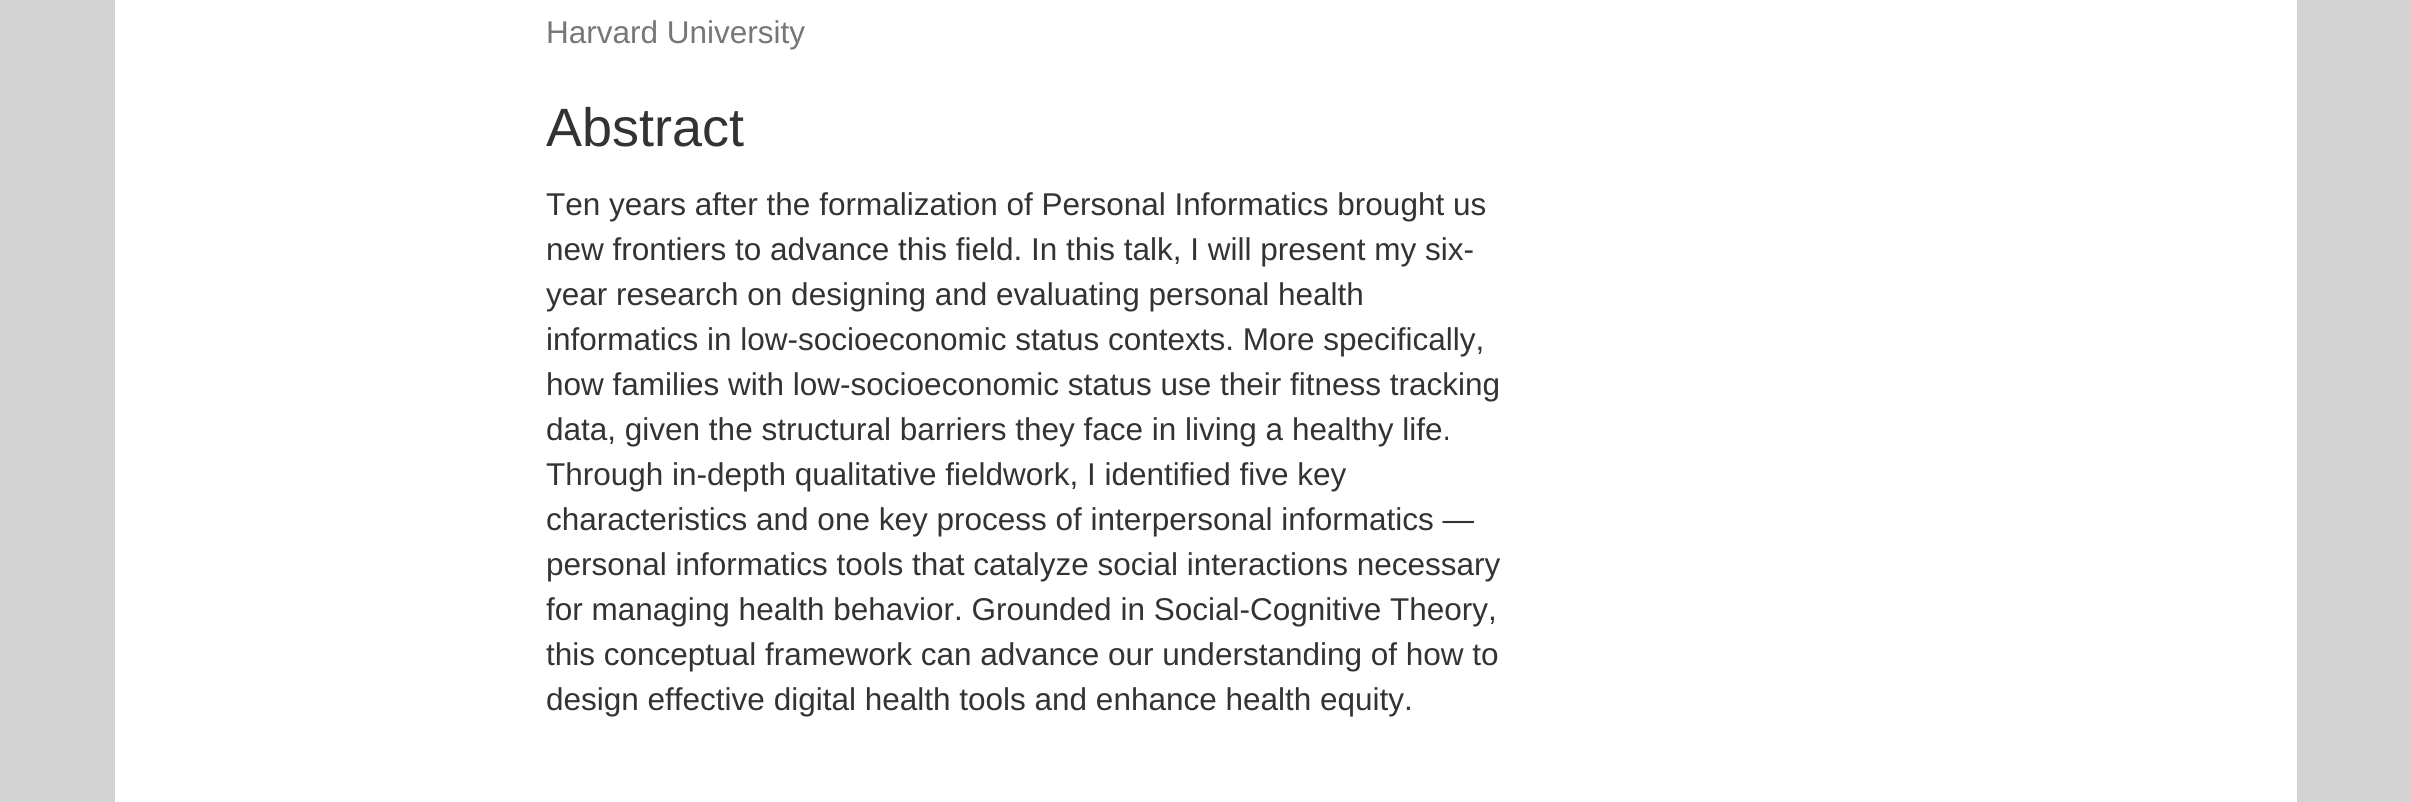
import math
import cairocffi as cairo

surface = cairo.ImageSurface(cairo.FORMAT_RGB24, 2411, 802)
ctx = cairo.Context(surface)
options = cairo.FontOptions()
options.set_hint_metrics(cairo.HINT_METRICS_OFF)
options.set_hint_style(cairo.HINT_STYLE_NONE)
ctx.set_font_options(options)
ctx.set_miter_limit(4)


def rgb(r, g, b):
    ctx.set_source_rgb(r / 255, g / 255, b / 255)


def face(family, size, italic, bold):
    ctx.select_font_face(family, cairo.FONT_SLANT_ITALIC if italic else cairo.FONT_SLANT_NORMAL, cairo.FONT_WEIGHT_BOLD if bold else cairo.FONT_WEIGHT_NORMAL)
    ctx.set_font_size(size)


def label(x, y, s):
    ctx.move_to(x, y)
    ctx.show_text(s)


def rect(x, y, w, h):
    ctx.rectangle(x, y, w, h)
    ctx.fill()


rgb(211, 211, 211)
ctx.paint()
rgb(255, 255, 255)
rect(115, 0, 2182, 802)
face('Liberation Sans', 31.5, 0, 0)
rgb(119, 119, 119)
label(546, 43, 'Harvard University')
face('Liberation Sans', 54, 0, 0)
rgb(51, 51, 51)
label(546, 146, 'Abstract')
face('Liberation Sans', 31.5, 0, 0)
label(546, 215, 'Ten years after the formalization of Personal Informatics brought us')
label(546, 260, 'new frontiers to advance this field. In this talk, I will present my six-')
label(546, 305, 'year research on designing and evaluating personal health')
label(546, 350, 'informatics in low-socioeconomic status contexts. More specifically,')
label(546, 395, 'how families with low-socioeconomic status use their fitness tracking')
label(546, 440, 'data, given the structural barriers they face in living a healthy life.')
label(546, 485, 'Through in-depth qualitative fieldwork, I identified five key')
label(546, 530, 'characteristics and one key process of interpersonal informatics —')
label(546, 575, 'personal informatics tools that catalyze social interactions necessary')
label(546, 620, 'for managing health behavior. Grounded in Social-Cognitive Theory,')
label(546, 665, 'this conceptual framework can advance our understanding of how to')
label(546, 710, 'design effective digital health tools and enhance health equity.')
surface.write_to_png('render.png')
